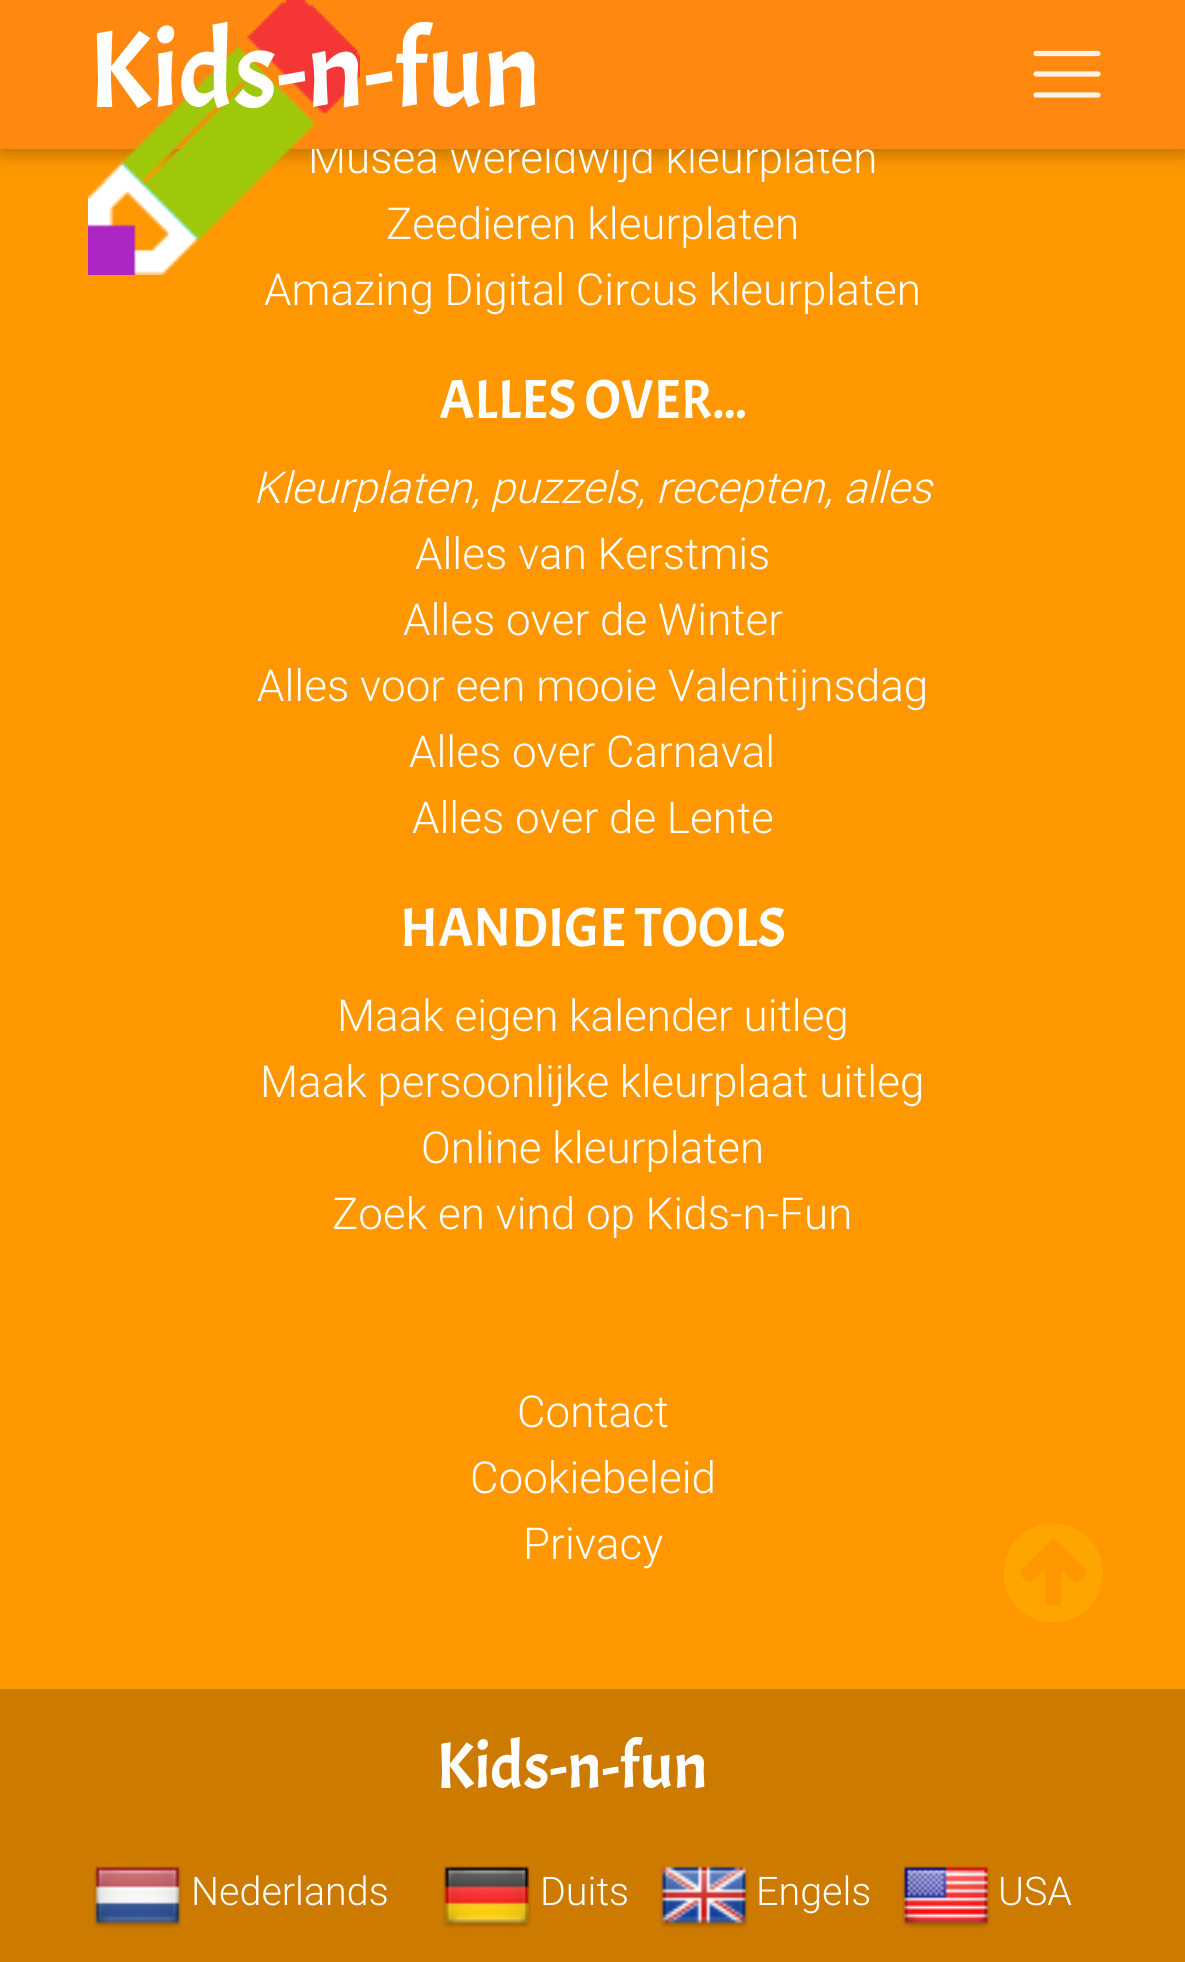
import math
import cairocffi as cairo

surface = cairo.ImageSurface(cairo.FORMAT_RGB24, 1185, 1962)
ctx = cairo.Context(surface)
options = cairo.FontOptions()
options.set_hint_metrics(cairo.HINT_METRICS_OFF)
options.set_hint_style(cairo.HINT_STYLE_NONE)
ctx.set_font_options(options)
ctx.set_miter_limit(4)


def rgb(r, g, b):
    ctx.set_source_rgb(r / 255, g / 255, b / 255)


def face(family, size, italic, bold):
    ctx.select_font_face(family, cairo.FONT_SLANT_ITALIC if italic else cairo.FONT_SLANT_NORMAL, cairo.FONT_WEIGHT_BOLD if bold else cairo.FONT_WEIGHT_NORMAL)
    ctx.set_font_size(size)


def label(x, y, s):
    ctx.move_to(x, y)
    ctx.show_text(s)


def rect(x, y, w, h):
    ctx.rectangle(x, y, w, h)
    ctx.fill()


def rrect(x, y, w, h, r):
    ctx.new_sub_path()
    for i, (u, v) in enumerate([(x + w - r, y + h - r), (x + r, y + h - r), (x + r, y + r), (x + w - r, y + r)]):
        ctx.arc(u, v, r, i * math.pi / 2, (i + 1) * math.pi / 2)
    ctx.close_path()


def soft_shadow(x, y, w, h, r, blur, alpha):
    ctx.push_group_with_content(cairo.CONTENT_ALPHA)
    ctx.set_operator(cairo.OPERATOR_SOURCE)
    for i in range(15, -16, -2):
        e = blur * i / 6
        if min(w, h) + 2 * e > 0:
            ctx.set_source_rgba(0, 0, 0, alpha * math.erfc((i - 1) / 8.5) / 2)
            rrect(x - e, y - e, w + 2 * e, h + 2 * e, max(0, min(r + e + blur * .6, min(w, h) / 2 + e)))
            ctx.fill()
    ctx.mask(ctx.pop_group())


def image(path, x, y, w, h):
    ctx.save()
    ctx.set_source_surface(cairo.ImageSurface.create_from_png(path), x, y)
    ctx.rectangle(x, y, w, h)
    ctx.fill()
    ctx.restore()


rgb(255, 152, 0)
ctx.paint()
rgb(0, 0, 0)
soft_shadow(0, 6, 1185, 148, 0, 14, 0.12)
soft_shadow(0, 6, 1185, 148, 0, 7, 0.16)
face('Roboto Light', 44, 0, 0)
rgb(255, 255, 255)
label(308, 173, 'Musea wereldwijd kleurplaten')
rgb(255, 137, 16)
rect(0, 0, 1185, 149)
rgb(255, 255, 255)
label(264, 305, 'Amazing Digital Circus kleurplaten')
image('image0.png', 88, 0, 272, 275)
face('Acme', 110, 0, 0)
label(88, 107, 'Kids-n-fun')
ctx.new_path()
ctx.move_to(1036, 53.5)
ctx.line_to(1098, 53.5)
ctx.move_to(1036, 74)
ctx.line_to(1098, 74)
ctx.move_to(1036, 95)
ctx.line_to(1098, 95)
rgb(255, 243, 231)
ctx.set_line_width(5.2)
ctx.set_line_cap(cairo.LINE_CAP_ROUND)
ctx.stroke()
face('Roboto Light', 44, 0, 0)
rgb(255, 255, 255)
label(386, 239, 'Zeedieren kleurplaten')
face('Acme', 55, 0, 0)
label(439, 418, 'ALLES OVER...')
face('Roboto Light', 44, 1, 0)
label(253, 503, 'Kleurplaten, puzzels, recepten, alles')
face('Roboto Light', 44, 0, 0)
label(415, 569, 'Alles van Kerstmis')
label(403, 635, 'Alles over de Winter')
label(257, 701, 'Alles voor een mooie Valentijnsdag')
label(409, 767, 'Alles over Carnaval')
label(412, 833, 'Alles over de Lente')
face('Acme', 55, 0, 0)
label(400, 946, 'HANDIGE TOOLS')
face('Roboto Light', 44, 0, 0)
label(337, 1031, 'Maak eigen kalender uitleg')
label(260, 1097, 'Maak persoonlijke kleurplaat uitleg')
label(421, 1163, 'Online kleurplaten')
label(332, 1229, 'Zoek en vind op Kids-n-Fun')
label(517, 1427, 'Contact')
label(470, 1493, 'Cookiebeleid')
label(523, 1559, 'Privacy')
rgb(205, 122, 0)
rect(0, 1689, 1185, 273)
face('Acme', 66, 0, 0)
rgb(255, 255, 255)
label(436, 1788, 'Kids-n-fun')
image('image1.png', 93, 1866, 89, 63)
face('Roboto Light', 39.5, 0, 0)
label(191, 1905, 'Nederlands')
image('image2.png', 443, 1866, 88, 63)
label(540, 1905, 'Duits')
image('image3.png', 660, 1866, 88, 63)
label(756, 1905, 'Engels')
image('image4.png', 902, 1866, 88, 63)
label(998, 1905, 'USA')
image('image5.png', 1004, 1523, 99, 100)
surface.write_to_png('render.png')
